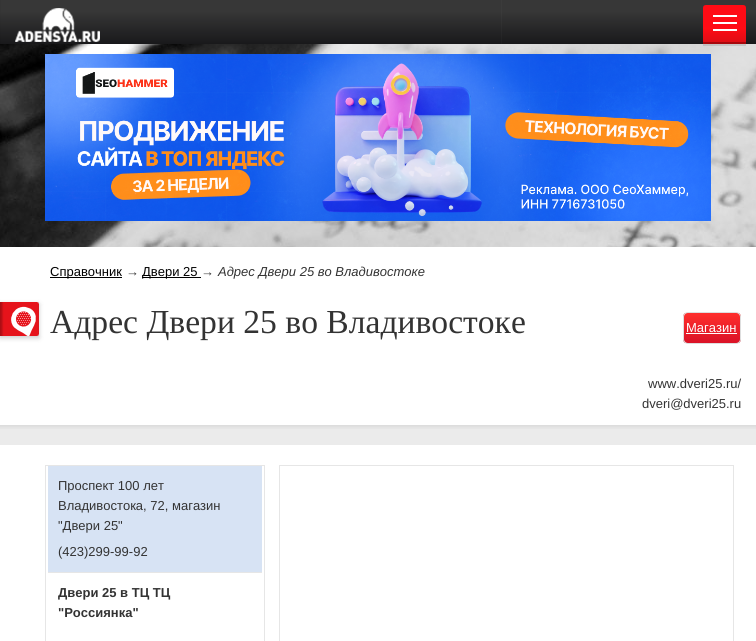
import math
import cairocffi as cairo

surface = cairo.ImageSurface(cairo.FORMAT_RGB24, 756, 641)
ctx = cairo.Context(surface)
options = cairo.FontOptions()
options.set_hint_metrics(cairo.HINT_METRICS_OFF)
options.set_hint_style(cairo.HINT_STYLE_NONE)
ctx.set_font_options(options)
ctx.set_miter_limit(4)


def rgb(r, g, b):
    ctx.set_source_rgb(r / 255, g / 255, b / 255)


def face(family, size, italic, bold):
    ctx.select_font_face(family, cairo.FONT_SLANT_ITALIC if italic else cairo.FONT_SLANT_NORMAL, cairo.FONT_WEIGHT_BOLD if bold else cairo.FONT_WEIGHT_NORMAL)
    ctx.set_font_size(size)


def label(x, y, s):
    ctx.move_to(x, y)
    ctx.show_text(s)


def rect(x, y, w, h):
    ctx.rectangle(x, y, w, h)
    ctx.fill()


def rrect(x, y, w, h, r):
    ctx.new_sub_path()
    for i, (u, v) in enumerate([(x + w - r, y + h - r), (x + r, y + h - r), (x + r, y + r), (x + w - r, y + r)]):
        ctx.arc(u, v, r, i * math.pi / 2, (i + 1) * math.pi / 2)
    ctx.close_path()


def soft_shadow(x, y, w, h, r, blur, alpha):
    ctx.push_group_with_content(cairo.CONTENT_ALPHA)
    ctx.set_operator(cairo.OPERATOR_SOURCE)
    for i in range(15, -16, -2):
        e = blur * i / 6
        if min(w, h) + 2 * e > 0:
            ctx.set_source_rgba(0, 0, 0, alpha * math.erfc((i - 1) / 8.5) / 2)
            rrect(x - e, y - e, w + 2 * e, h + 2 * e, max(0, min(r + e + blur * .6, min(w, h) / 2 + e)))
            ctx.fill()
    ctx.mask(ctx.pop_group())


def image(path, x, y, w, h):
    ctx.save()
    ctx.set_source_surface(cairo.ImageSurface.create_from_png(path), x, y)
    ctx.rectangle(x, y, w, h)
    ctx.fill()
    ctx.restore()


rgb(255, 255, 255)
ctx.paint()
image('image0.png', 0, 0, 756, 247)
image('image1.png', 0, 0, 756, 44)
image('image2.png', 15, 8, 85, 34)
image('image3.png', 703, 5, 43, 41)
image('image4.png', 45, 54, 666, 167)
rgb(0, 0, 0)
rect(50, 277, 72, 1)
face('Liberation Sans', 13, 0, 0)
label(50, 276, 'Справочник')
rgb(51, 51, 51)
label(126, 276, '→')
rgb(0, 0, 0)
rect(142, 277, 59, 1)
label(142, 276, 'Двери 25')
rgb(51, 51, 51)
label(201, 276, '→')
face('Liberation Sans', 13, 1, 0)
label(218, 276, 'Адрес Двери 25 во Владивостоке')
rgb(0, 0, 0)
soft_shadow(0, 304, 39, 34, 0, 2.5, 0.2)
image('image5.png', 0, 302, 39, 34)
face('Liberation Serif', 33.6, 0, 0)
rgb(51, 51, 51)
label(50, 333, 'Адрес Двери 25 во Владивостоке')
ctx.save()
rrect(683, 312, 58, 32, 5)
ctx.clip()
gradient = cairo.LinearGradient(712, 313, 712, 343)
gradient.add_color_stop_rgba(0, 1, 0.184, 0.173, 1)
gradient.add_color_stop_rgba(1, 0.855, 0.071, 0.153, 1)
ctx.set_source(gradient)
rect(683, 313, 58, 30)
ctx.restore()
rrect(683.5, 312.5, 57, 31, 4.5)
rgb(222, 222, 222)
ctx.set_line_width(1)
ctx.stroke()
face('Liberation Sans', 13, 0, 0)
rgb(255, 255, 255)
label(686, 332, 'Магазин')
rect(686, 333, 51, 1)
rgb(51, 51, 51)
label(648, 388, 'www.dveri25.ru/')
label(642, 408, 'dveri@dveri25.ru')
rgb(235, 235, 235)
rect(0, 425, 756, 20)
image('image6.png', 0, 425, 756, 4)
ctx.rectangle(45.5, 465.5, 219, 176)
rgb(230, 230, 230)
ctx.stroke()
rect(48, 572, 214, 1)
rgb(215, 227, 244)
rect(48, 466, 214, 106)
rgb(51, 51, 51)
label(58, 490, 'Проспект 100 лет')
label(58, 510, 'Владивостока, 72, магазин')
label(58, 530, '"Двери 25"')
label(58, 556, '(423)299-99-92')
face('Liberation Sans', 13, 0, 1)
label(58, 597, 'Двери 25 в ТЦ ТЦ')
label(58, 617, '"Россиянка"')
ctx.rectangle(279.5, 465.5, 454, 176)
rgb(230, 230, 230)
ctx.stroke()
surface.write_to_png('render.png')
